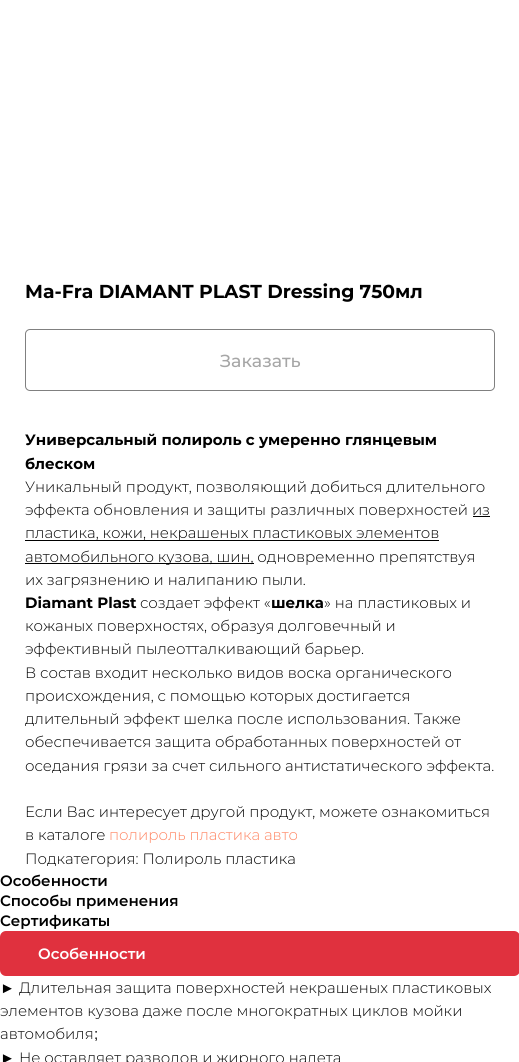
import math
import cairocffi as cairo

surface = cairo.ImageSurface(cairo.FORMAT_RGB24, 519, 1062)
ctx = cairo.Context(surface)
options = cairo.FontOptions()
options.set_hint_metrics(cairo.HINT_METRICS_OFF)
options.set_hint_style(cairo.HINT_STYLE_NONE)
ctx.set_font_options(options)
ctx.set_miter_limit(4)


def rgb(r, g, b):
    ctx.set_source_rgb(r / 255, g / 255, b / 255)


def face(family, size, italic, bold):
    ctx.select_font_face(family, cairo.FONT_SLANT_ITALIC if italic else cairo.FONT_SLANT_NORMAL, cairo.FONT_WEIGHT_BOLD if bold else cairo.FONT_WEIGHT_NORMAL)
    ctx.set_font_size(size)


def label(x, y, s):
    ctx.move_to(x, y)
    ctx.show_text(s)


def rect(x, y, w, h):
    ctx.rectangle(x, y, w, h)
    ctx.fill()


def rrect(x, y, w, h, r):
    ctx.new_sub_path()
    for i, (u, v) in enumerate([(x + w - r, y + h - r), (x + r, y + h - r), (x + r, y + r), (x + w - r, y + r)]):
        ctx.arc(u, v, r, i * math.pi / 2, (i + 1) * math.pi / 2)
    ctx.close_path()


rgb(255, 255, 255)
ctx.paint()
face('Montserrat', 18.75, 0, 1)
rgb(0, 0, 0)
label(25, 298, 'Ma-Fra DIAMANT PLAST Dressing 750мл')
rrect(25.5, 329.5, 469, 61, 4.5)
rgb(128, 128, 128)
ctx.set_line_width(1)
ctx.stroke()
face('Montserrat Medium', 17.5, 0, 0)
rgb(166, 166, 166)
label(220, 367, 'Заказать')
face('Montserrat', 15, 0, 1)
rgb(0, 0, 0)
label(25, 445, 'Универсальный полироль с умеренно глянцевым')
label(25, 469, 'блеском')
face('Montserrat Light', 15, 0, 0)
label(25, 492, 'Уникальный продукт, позволяющий добиться длительного')
label(25, 515, 'эффекта обновления и защиты различных поверхностей из')
rect(25, 540, 414, 1)
label(25, 538, 'пластика, кожи, некрашеных пластиковых элементов')
rect(473, 516, 17, 1)
rect(25, 563, 229, 1)
label(25, 562, 'автомобильного кузова, шин, одновременно препятствуя')
label(25, 585, 'их загрязнению и налипанию пыли.')
face('Montserrat', 15, 0, 1)
label(25, 608, 'Diamant Plast')
face('Montserrat Light', 15, 0, 0)
label(140, 608, 'создает эффект «')
face('Montserrat', 15, 0, 1)
label(271, 608, 'шелка')
face('Montserrat Light', 15, 0, 0)
label(324, 608, '» на пластиковых и')
label(25, 631, 'кожаных поверхностях, образуя долговечный и')
label(25, 654, 'эффективный пылеотталкивающий барьер.')
label(25, 678, 'В состав входит несколько видов воска органического')
label(25, 701, 'происхождения, с помощью которых достигается')
label(25, 724, 'длительный эффект шелка после использования. Также')
label(25, 747, 'обеспечивается защита обработанных поверхностей от')
label(25, 771, 'оседания грязи за счет сильного антистатического эффекта.')
label(25, 817, 'Если Вас интересует другой продукт, можете ознакомиться')
label(25, 840, 'в каталоге')
rgb(255, 133, 98)
label(109, 840, 'полироль пластика авто')
rgb(0, 0, 0)
label(25, 864, 'Подкатегория: Полироль пластика')
face('Montserrat SemiBold', 15, 0, 0)
label(0, 886, 'Особенности')
label(0, 906, 'Способы применения')
label(0, 926, 'Сертификаты')
rgb(224, 49, 62)
rrect(0, 931, 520, 45, 6)
ctx.fill()
rgb(255, 255, 255)
label(38, 959, 'Особенности')
face('Liberation Sans', 15, 0, 0)
rgb(0, 0, 0)
label(0, 993, '►')
face('Montserrat Light', 15, 0, 0)
label(19, 993, 'Длительная защита поверхностей некрашеных пластиковых')
label(0, 1016, 'элементов кузова даже после многократных циклов мойки')
label(0, 1039, 'автомобиля')
face('Liberation Sans', 15, 0, 0)
label(94, 1039, ';')
label(0, 1063, '►')
face('Montserrat Light', 15, 0, 0)
label(19, 1063, 'Не оставляет разводов и жирного налета')
surface.write_to_png('render.png')
